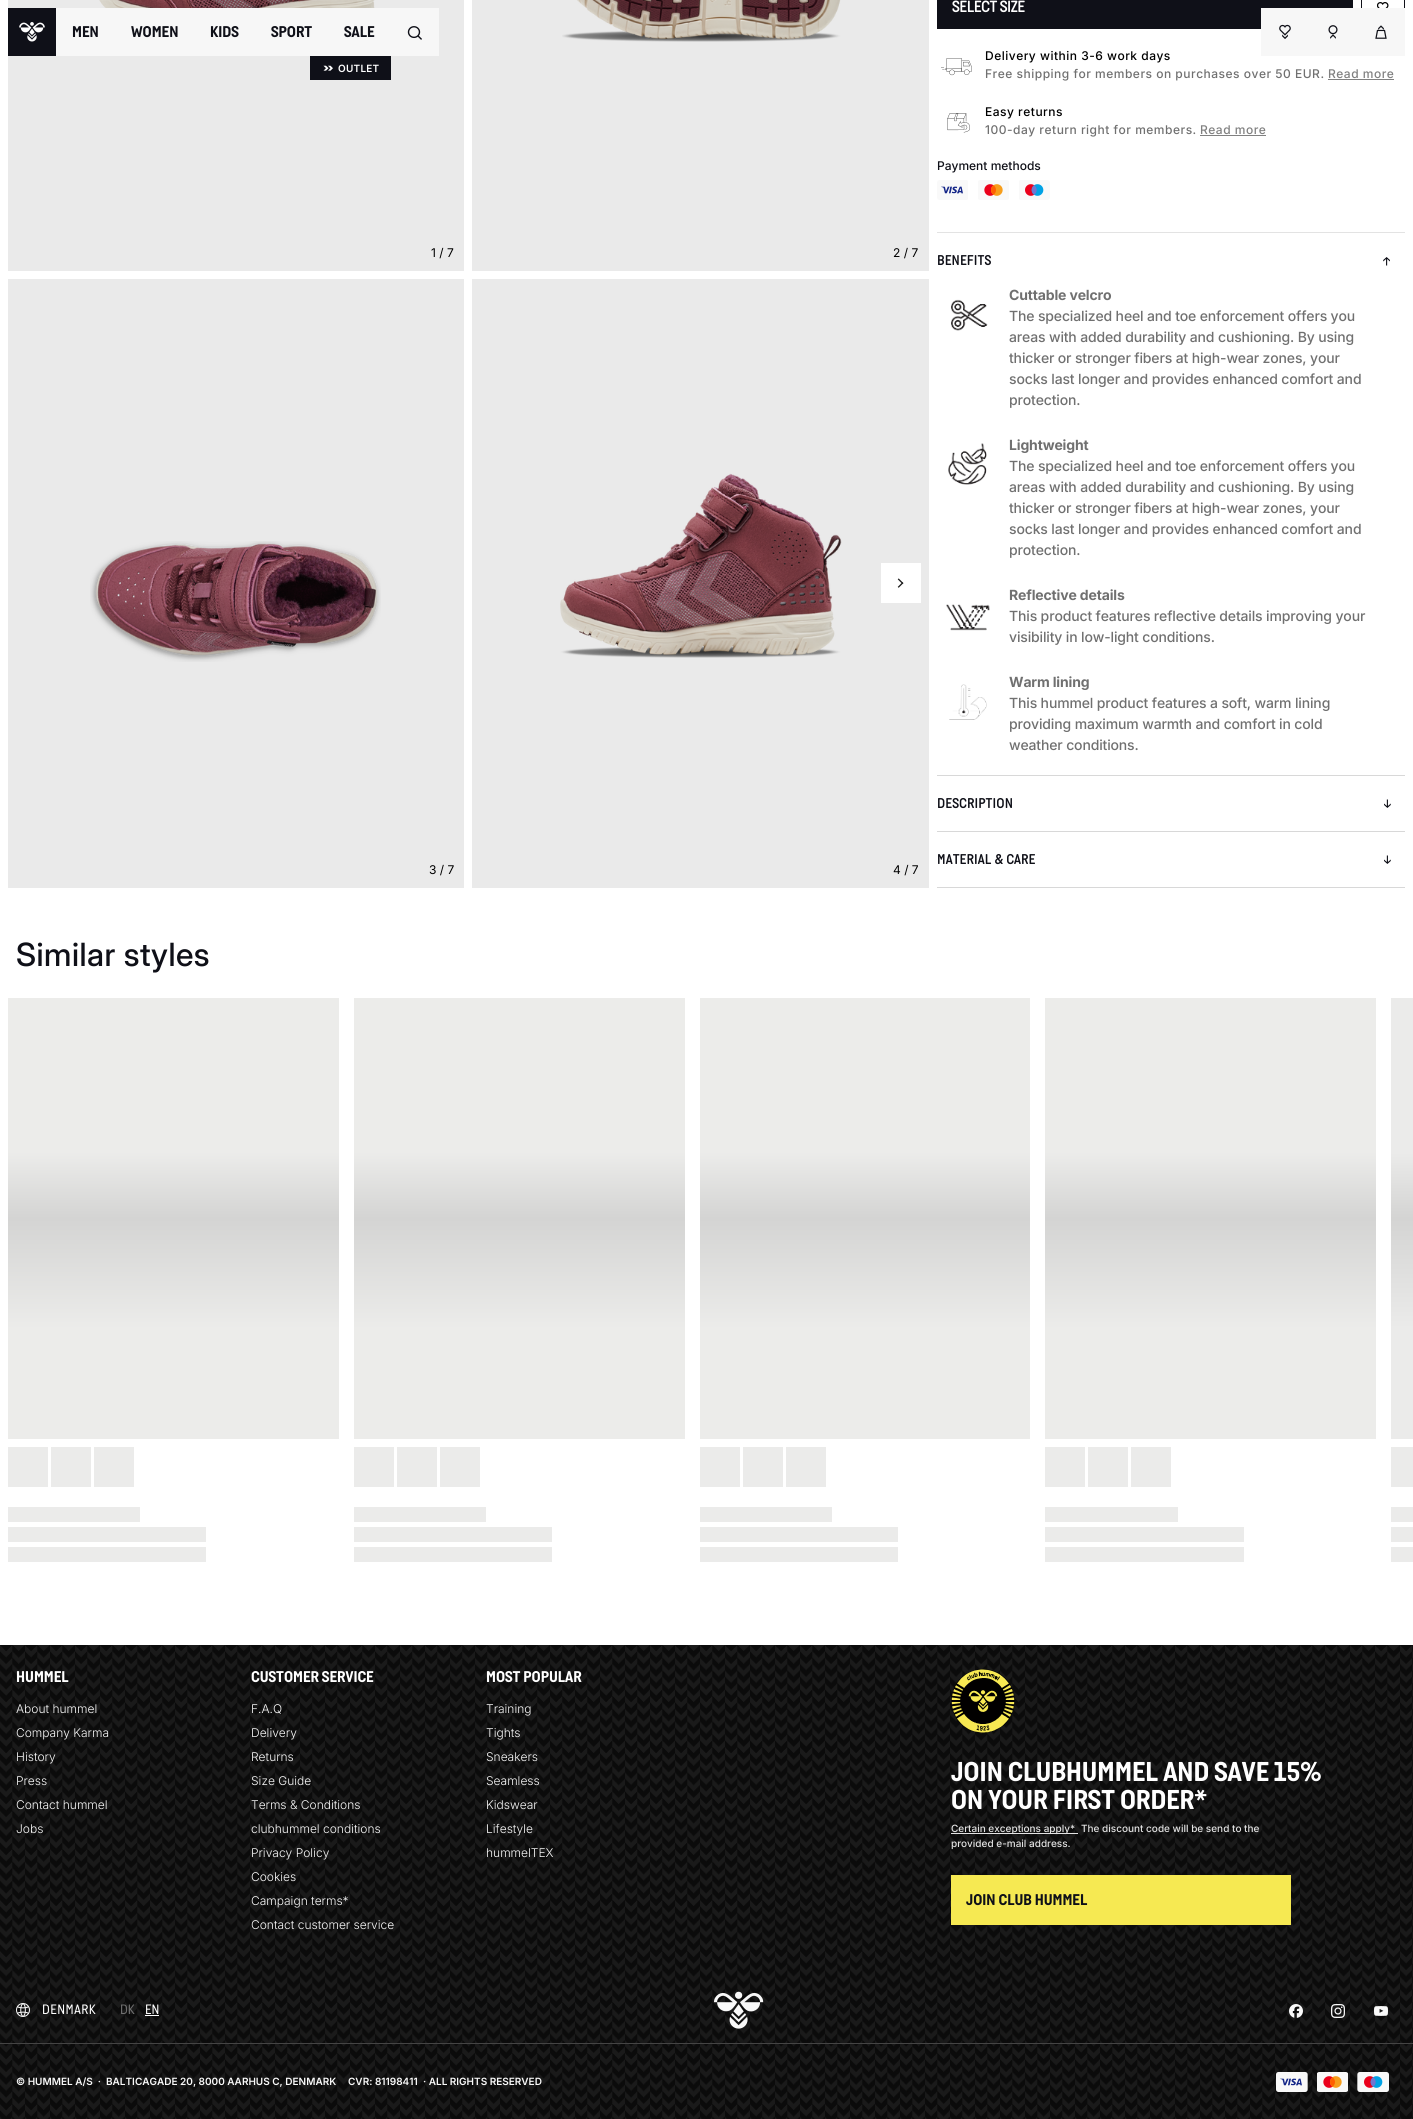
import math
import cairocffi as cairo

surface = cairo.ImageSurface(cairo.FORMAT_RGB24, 1413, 2119)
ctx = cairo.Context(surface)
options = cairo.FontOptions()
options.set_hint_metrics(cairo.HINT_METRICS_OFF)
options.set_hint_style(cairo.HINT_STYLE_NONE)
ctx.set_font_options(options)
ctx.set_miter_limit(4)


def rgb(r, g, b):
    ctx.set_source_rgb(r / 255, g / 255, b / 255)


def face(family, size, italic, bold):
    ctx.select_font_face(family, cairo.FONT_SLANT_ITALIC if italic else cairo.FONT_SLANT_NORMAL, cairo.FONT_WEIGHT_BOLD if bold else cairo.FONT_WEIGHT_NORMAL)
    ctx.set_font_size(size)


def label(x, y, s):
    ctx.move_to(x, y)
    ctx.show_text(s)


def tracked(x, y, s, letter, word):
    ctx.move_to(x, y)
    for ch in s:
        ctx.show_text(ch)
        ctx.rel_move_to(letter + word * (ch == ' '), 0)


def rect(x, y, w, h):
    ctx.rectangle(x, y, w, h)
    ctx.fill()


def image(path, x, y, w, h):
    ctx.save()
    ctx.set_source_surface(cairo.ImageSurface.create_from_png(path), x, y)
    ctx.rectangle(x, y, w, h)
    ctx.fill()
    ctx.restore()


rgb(255, 255, 255)
ctx.paint()
rgb(234, 234, 234)
rect(8, 0, 456, 271)
image('image0.png', 99, 0, 276, 8)
face('Inter', 12, 0, 0)
rgb(0, 0, 0)
label(431, 257, '1 / 7')
rgb(234, 234, 234)
rect(472, 0, 457, 271)
image('image1.png', 562, 0, 279, 42)
rgb(0, 0, 0)
label(893, 257, '2 / 7')
rgb(234, 234, 234)
rect(472, 279, 457, 609)
rgb(255, 255, 255)
rect(881, 563, 40, 40)
image('image2.png', 897, 578, 7, 10)
rgb(234, 234, 234)
rect(8, 279, 456, 609)
image('image3.png', 90, 541, 291, 121)
rgb(0, 0, 0)
label(429, 874, '3 / 7')
image('image4.png', 560, 473, 282, 185)
label(893, 874, '4 / 7')
rgb(15, 16, 24)
rect(937, 0, 416, 29)
face('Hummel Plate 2', 16, 0, 1)
rgb(255, 255, 255)
label(952, 12, 'SELECT SIZE')
ctx.rectangle(1361.5, -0.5, 43, 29)
rgb(15, 16, 24)
ctx.set_line_width(1)
ctx.stroke()
image('image5.png', 1377, 2, 12, 6)
image('image6.png', 941, 58, 31, 18)
face('Inter Medium', 12, 0, 0)
rgb(0, 0, 0)
tracked(985, 60, 'Delivery within 3-6 work days', 0.5, 0)
rgb(112, 112, 112)
tracked(985, 78, 'Free shipping for members on purchases over 50 EUR.', 0.5, 0)
rgb(128, 128, 128)
tracked(1328, 78, 'Read more', 0.5, 0)
rect(1328, 79, 66, 1)
image('image7.png', 947, 113, 23, 20)
rgb(0, 0, 0)
tracked(985, 116, 'Easy returns', 0.5, 0)
rgb(112, 112, 112)
tracked(985, 134, '100-day return right for members.', 0.5, 0)
rgb(128, 128, 128)
tracked(1200, 134, 'Read more', 0.5, 0)
rect(1200, 135, 66, 1)
rgb(15, 16, 24)
label(937, 170, 'Payment methods')
image('image8.png', 937, 180, 31, 20)
image('image9.png', 978, 180, 31, 20)
image('image10.png', 1019, 180, 31, 20)
rgb(227, 227, 227)
rect(937, 232, 468, 1)
face('Hummel Plate 2', 14, 0, 1)
rgb(15, 16, 24)
tracked(937, 265, 'BENEFITS', 0.5, 0)
image('image11.png', 1383, 257, 7, 9)
image('image12.png', 951, 299, 37, 32)
face('Inter', 14, 0, 1)
rgb(112, 112, 112)
tracked(1009, 300, 'Cuttable velcro', -0.15, 0)
face('Inter Medium', 14, 0, 0)
tracked(1009, 321, 'The specialized heel and toe enforcement offers you', -0.15, 0)
tracked(1009, 342, 'areas with added durability and cushioning. By using', -0.15, 0)
tracked(1009, 363, 'thicker or stronger fibers at high-wear zones, your', -0.15, 0)
tracked(1009, 384, 'socks last longer and provides enhanced comfort and', -0.15, 0)
tracked(1009, 405, 'protection.', -0.15, 0)
image('image13.png', 948, 443, 39, 42)
face('Inter', 14, 0, 1)
tracked(1009, 450, 'Lightweight', -0.15, 0)
face('Inter Medium', 14, 0, 0)
tracked(1009, 471, 'The specialized heel and toe enforcement offers you', -0.15, 0)
tracked(1009, 492, 'areas with added durability and cushioning. By using', -0.15, 0)
tracked(1009, 513, 'thicker or stronger fibers at high-wear zones, your', -0.15, 0)
tracked(1009, 534, 'socks last longer and provides enhanced comfort and', -0.15, 0)
tracked(1009, 555, 'protection.', -0.15, 0)
image('image14.png', 946, 604, 44, 27)
face('Inter', 14, 0, 1)
tracked(1009, 600, 'Reflective details', -0.15, 0)
face('Inter Medium', 14, 0, 0)
tracked(1009, 621, 'This product features reflective details improving your', -0.15, 0)
tracked(1009, 642, 'visibility in low-light conditions.', -0.15, 0)
image('image15.png', 949, 684, 38, 36)
face('Inter', 14, 0, 1)
tracked(1009, 687, 'Warm lining', -0.15, 0)
face('Inter Medium', 14, 0, 0)
tracked(1009, 708, 'This hummel product features a soft, warm lining', -0.15, 0)
tracked(1009, 729, 'providing maximum warmth and comfort in cold', -0.15, 0)
tracked(1009, 750, 'weather conditions.', -0.15, 0)
rgb(216, 216, 216)
rect(937, 775, 468, 1)
rect(937, 831, 468, 1)
face('Hummel Plate 2', 14, 0, 1)
rgb(15, 16, 24)
tracked(937, 808, 'DESCRIPTION', 0.5, 0)
image('image16.png', 1384, 799, 7, 9)
rgb(216, 216, 216)
rect(937, 887, 468, 1)
rgb(15, 16, 24)
tracked(937, 864, 'MATERIAL & CARE', 0.5, 0)
image('image16.png', 1384, 855, 7, 9)
face('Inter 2 Medium', 32, 0, 0)
tracked(16, 966, 'Similar styles', 0.5, 0)
gradient = cairo.LinearGradient(174, 1439, 174, 998)
gradient.add_color_stop_rgba(0.25, 0.925, 0.925, 0.918, 1)
gradient.add_color_stop_rgba(0.5, 0.831, 0.831, 0.827, 1)
gradient.add_color_stop_rgba(0.65, 0.925, 0.925, 0.918, 1)
ctx.set_source(gradient)
rect(8, 998, 331, 441)
rgb(235, 235, 234)
rect(8, 1447, 40, 40)
rect(51, 1447, 40, 40)
rect(94, 1447, 40, 40)
rect(8, 1507, 132, 15)
rect(8, 1527, 198, 15)
rect(8, 1547, 198, 15)
gradient = cairo.LinearGradient(520, 1439, 520, 998)
gradient.add_color_stop_rgba(0.25, 0.925, 0.925, 0.918, 1)
gradient.add_color_stop_rgba(0.5, 0.831, 0.831, 0.827, 1)
gradient.add_color_stop_rgba(0.65, 0.925, 0.925, 0.918, 1)
ctx.set_source(gradient)
rect(354, 998, 331, 441)
rgb(235, 235, 234)
rect(354, 1447, 40, 40)
rect(397, 1447, 40, 40)
rect(440, 1447, 40, 40)
rect(354, 1507, 132, 15)
rect(354, 1527, 198, 15)
rect(354, 1547, 198, 15)
gradient = cairo.LinearGradient(865, 1439, 865, 998)
gradient.add_color_stop_rgba(0.25, 0.925, 0.925, 0.918, 1)
gradient.add_color_stop_rgba(0.5, 0.831, 0.831, 0.827, 1)
gradient.add_color_stop_rgba(0.65, 0.925, 0.925, 0.918, 1)
ctx.set_source(gradient)
rect(700, 998, 330, 441)
rgb(235, 235, 234)
rect(700, 1447, 40, 40)
rect(743, 1447, 40, 40)
rect(786, 1447, 40, 40)
rect(700, 1507, 132, 15)
rect(700, 1527, 198, 15)
rect(700, 1547, 198, 15)
gradient = cairo.LinearGradient(1211, 1439, 1211, 998)
gradient.add_color_stop_rgba(0.25, 0.925, 0.925, 0.918, 1)
gradient.add_color_stop_rgba(0.5, 0.831, 0.831, 0.827, 1)
gradient.add_color_stop_rgba(0.65, 0.925, 0.925, 0.918, 1)
ctx.set_source(gradient)
rect(1045, 998, 331, 441)
rgb(235, 235, 234)
rect(1045, 1447, 40, 40)
rect(1088, 1447, 40, 40)
rect(1131, 1447, 40, 40)
rect(1045, 1507, 133, 15)
rect(1045, 1527, 199, 15)
rect(1045, 1547, 199, 15)
gradient = cairo.LinearGradient(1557, 1439, 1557, 998)
gradient.add_color_stop_rgba(0.25, 0.922, 0.922, 0.918, 1)
gradient.add_color_stop_rgba(0.5, 0.831, 0.831, 0.827, 1)
gradient.add_color_stop_rgba(0.65, 0.922, 0.922, 0.918, 1)
ctx.set_source(gradient)
rect(1391, 998, 22, 441)
rgb(235, 235, 234)
rect(1391, 1447, 22, 40)
rect(1391, 1507, 22, 15)
rect(1391, 1527, 22, 15)
rect(1391, 1547, 22, 15)
rgb(15, 16, 24)
rect(8, 8, 48, 48)
image('image17.png', 19, 22, 26, 20)
rgb(247, 247, 247)
rect(56, 8, 383, 48)
face('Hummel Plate', 16, 0, 1)
rgb(15, 16, 24)
label(72, 37, 'MEN')
label(131, 37, 'WOMEN')
label(210, 37, 'KIDS')
label(271, 37, 'SPORT')
label(344, 37, 'SALE')
image('image18.png', 407, 26, 15, 14)
rect(310, 56, 81, 24)
image('image19.png', 323, 65, 10, 6)
face('Inter SemiBold', 10, 0, 0)
rgb(255, 255, 255)
tracked(338, 72, 'OUTLET', 0.25, 0)
rgb(247, 247, 247)
rect(1261, 8, 144, 48)
image('image20.png', 1279, 24, 12, 15)
image('image21.png', 1328, 25, 10, 14)
image('image22.png', 1375, 25, 12, 14)
rgb(26, 26, 26)
rect(0, 1645, 1413, 474)
image('image23.png', 0, 1645, 1413, 474)
face('Hummel Plate', 16, 0, 1)
rgb(255, 255, 255)
label(16, 1682, 'HUMMEL')
face('Inter Light', 12, 0, 0)
rgb(249, 249, 249)
label(16, 1713, 'About hummel')
label(16, 1737, 'Company Karma')
label(16, 1761, 'History')
label(16, 1785, 'Press')
label(16, 1809, 'Contact hummel')
label(16, 1833, 'Jobs')
face('Hummel Plate', 16, 0, 1)
rgb(255, 255, 255)
label(251, 1682, 'CUSTOMER SERVICE')
face('Inter Light', 12, 0, 0)
rgb(249, 249, 249)
label(251, 1713, 'F.A.Q')
label(251, 1737, 'Delivery')
label(251, 1761, 'Returns')
label(251, 1785, 'Size Guide')
label(251, 1809, 'Terms & Conditions')
label(251, 1833, 'clubhummel conditions')
label(251, 1857, 'Privacy Policy')
label(251, 1881, 'Cookies')
label(251, 1905, 'Campaign terms*')
label(251, 1929, 'Contact customer service')
face('Hummel Plate', 16, 0, 1)
rgb(255, 255, 255)
label(486, 1682, 'MOST POPULAR')
face('Inter Light', 12, 0, 0)
rgb(249, 249, 249)
label(486, 1713, 'Training')
label(486, 1737, 'Tights')
label(486, 1761, 'Sneakers')
label(486, 1785, 'Seamless')
label(486, 1809, 'Kidswear')
label(486, 1833, 'Lifestyle')
label(486, 1857, 'hummelTEX')
image('image24.png', 951, 1669, 64, 64)
face('Hummel Plate', 28, 0, 1)
rgb(255, 255, 255)
label(951, 1781, 'JOIN CLUBHUMMEL AND SAVE 15%')
label(951, 1809, 'ON YOUR FIRST ORDER*')
rgb(227, 227, 227)
rect(951, 1833, 127, 1)
face('Inter Medium', 10, 0, 0)
label(951, 1832, 'Certain exceptions apply*')
label(1081, 1832, 'The discount code will be send to the')
label(951, 1847, 'provided e-mail address.')
rgb(246, 233, 82)
rect(951, 1875, 340, 50)
face('Hummel Plate', 16, 0, 1)
rgb(15, 16, 24)
label(966, 1905, 'JOIN CLUB HUMMEL')
image('image25.png', 16, 2003, 14, 14)
face('Hummel Plate', 14, 0, 0)
rgb(255, 255, 255)
tracked(42, 2014, 'DENMARK', 0.5, 0)
rgb(112, 112, 112)
label(120, 2014, 'DK')
rgb(255, 255, 255)
label(145, 2014, 'EN')
rect(145, 2015, 14, 1)
image('image26.png', 714, 1991, 50, 38)
image('image27.png', 1289, 2004, 14, 14)
image('image28.png', 1331, 2004, 14, 14)
image('image29.png', 1374, 2006, 14, 10)
rgb(68, 68, 68)
rect(0, 2043, 1413, 1)
face('Inter SemiBold', 10, 0, 0)
rgb(249, 249, 249)
label(16, 2085, '© HUMMEL A/S  ·  BALTICAGADE 20, 8000 AARHUS C, DENMARK')
label(348, 2085, 'CVR: 81198411')
label(423, 2085, '· ALL RIGHTS RESERVED')
image('image30.png', 1276, 2072, 32, 20)
image('image31.png', 1317, 2072, 31, 20)
image('image32.png', 1357, 2072, 32, 20)
surface.write_to_png('render.png')
